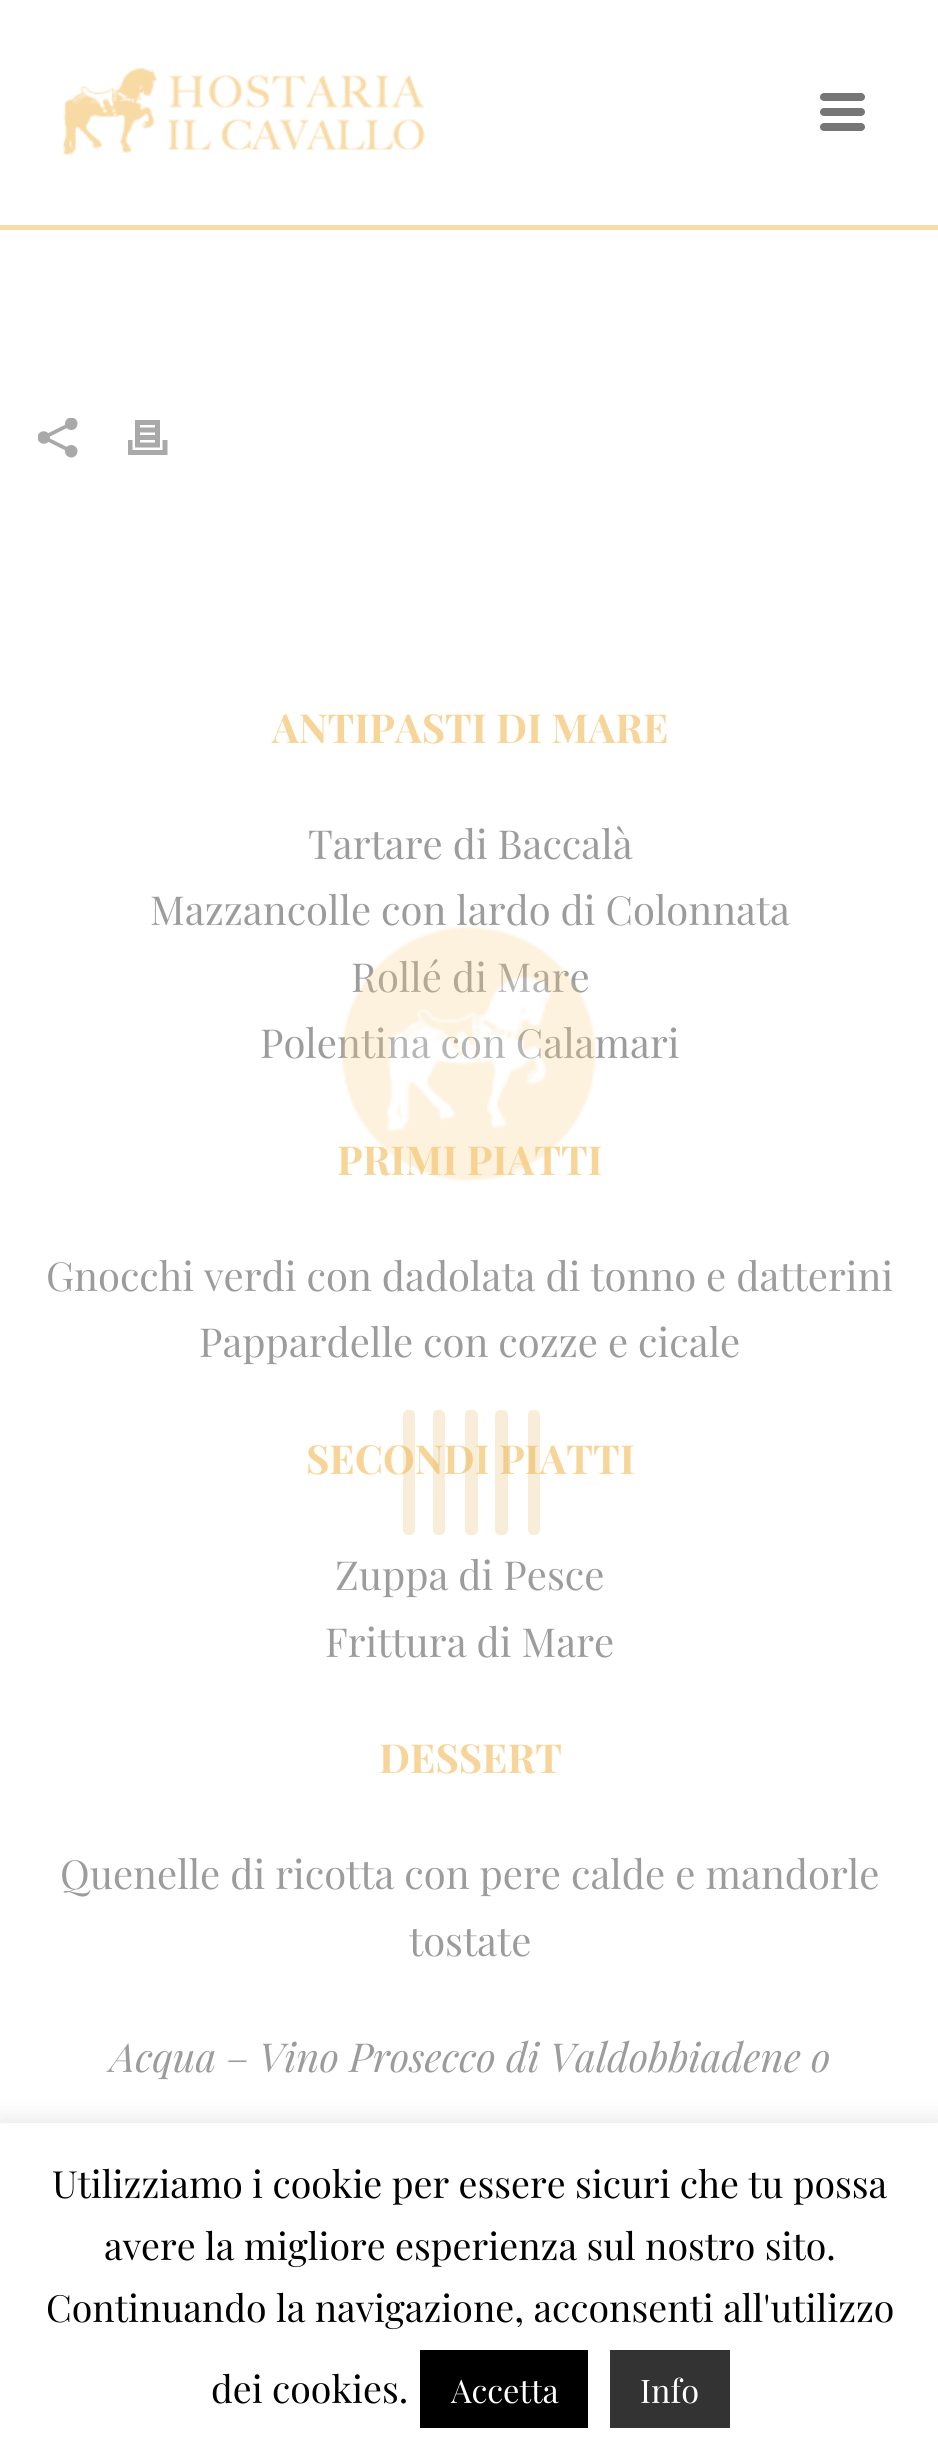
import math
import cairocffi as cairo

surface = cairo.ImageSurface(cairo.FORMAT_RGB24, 938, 2457)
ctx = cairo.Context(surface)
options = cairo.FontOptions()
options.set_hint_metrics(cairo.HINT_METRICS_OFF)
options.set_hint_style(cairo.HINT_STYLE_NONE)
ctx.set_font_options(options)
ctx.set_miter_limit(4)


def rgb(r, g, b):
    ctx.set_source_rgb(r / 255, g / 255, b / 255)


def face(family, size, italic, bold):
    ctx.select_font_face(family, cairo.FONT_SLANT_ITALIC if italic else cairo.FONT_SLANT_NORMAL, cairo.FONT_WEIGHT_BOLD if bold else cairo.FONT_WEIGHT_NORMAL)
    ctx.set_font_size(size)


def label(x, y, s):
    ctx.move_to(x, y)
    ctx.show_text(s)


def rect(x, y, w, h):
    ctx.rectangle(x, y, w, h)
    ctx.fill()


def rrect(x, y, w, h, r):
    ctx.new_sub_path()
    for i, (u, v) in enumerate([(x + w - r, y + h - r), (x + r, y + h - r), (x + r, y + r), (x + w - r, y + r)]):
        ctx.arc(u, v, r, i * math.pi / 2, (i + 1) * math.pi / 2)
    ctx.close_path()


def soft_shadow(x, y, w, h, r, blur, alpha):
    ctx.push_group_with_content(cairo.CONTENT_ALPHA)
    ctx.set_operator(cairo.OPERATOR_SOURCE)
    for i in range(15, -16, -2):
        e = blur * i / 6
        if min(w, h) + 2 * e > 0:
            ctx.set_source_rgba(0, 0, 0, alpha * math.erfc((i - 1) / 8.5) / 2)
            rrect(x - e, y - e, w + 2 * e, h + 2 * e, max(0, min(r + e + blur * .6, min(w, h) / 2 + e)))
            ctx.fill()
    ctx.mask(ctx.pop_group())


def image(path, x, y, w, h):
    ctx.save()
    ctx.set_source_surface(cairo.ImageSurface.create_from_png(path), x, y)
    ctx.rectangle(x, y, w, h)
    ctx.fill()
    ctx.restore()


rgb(255, 255, 255)
ctx.paint()
rgb(248, 219, 165)
rect(0, 225, 938, 5)
image('image0.png', 63, 68, 362, 87)
rgb(118, 118, 118)
rrect(820, 93, 45, 8, 4)
ctx.fill()
rrect(820, 108, 45, 8, 4)
ctx.fill()
rrect(820, 123, 45, 8, 4)
ctx.fill()
image('image1.png', 38, 418, 40, 40)
image('image2.png', 128, 420, 40, 35)
face('Playfair Display', 40, 0, 1)
rgb(247, 212, 151)
label(272, 743, 'ANTIPASTI DI MARE')
face('Playfair Display', 40, 0, 0)
rgb(156, 156, 156)
label(308, 859, 'Tartare di Baccalà')
label(150, 925, 'Mazzancolle con lardo di Colonnata')
label(351, 992, 'Rollé di Mare')
label(260, 1058, 'Polentina con Calamari')
face('Playfair Display', 40, 0, 1)
rgb(247, 212, 151)
label(337, 1175, 'PRIMI PIATTI')
face('Playfair Display', 40, 0, 0)
rgb(156, 156, 156)
label(46, 1291, 'Gnocchi verdi con dadolata di tonno e datterini')
label(199, 1357, 'Pappardelle con cozze e cicale')
face('Playfair Display', 40, 0, 1)
rgb(247, 212, 151)
label(306, 1474, 'SECONDI PIATTI')
face('Playfair Display', 40, 0, 0)
rgb(156, 156, 156)
label(335, 1590, 'Zuppa di Pesce')
label(325, 1657, 'Frittura di Mare')
face('Playfair Display', 40, 0, 1)
rgb(247, 212, 151)
label(379, 1773, 'DESSERT')
face('Playfair Display', 40, 0, 0)
rgb(156, 156, 156)
label(60, 1889, 'Quenelle di ricotta con pere calde e mandorle')
label(409, 1956, 'tostate')
face('Playfair Display', 40, 1, 0)
label(110, 2072, 'Acqua')
face('Playfair Display', 40, 0, 0)
label(226, 2072, '–')
face('Playfair Display', 40, 1, 0)
label(259, 2072, 'Vino Prosecco di Valdobbiadene o')
image('image3.png', 342, 926, 254, 255)
ctx.set_source_rgba(0.91, 0.745, 0.451, 0.27)
rrect(403, 1410, 12, 125, 5)
ctx.fill()
rrect(433, 1410, 12, 125, 5)
ctx.fill()
rrect(465, 1410, 13, 125, 5)
ctx.fill()
rrect(495, 1410, 13, 125, 5)
ctx.fill()
rrect(528, 1410, 12, 125, 5)
ctx.fill()
rgb(172, 171, 171)
soft_shadow(0, 2120, 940, 335, 0, 12.5, 0.3)
rgb(255, 255, 255)
rect(0, 2123, 938, 334)
face('Playfair Display', 37.5, 0, 0)
rgb(0, 0, 0)
label(52, 2198, 'Utilizziamo i cookie per essere sicuri che tu possa')
label(104, 2260, 'avere la migliore esperienza sul nostro sito.')
label(46, 2322, 'Continuando la navigazione, acconsenti all\'utilizzo')
label(211, 2403, 'dei cookies.')
rect(420, 2350, 168, 78)
face('Playfair Display', 32.5, 0, 0)
rgb(255, 255, 255)
label(451, 2403, 'Accetta')
rgb(51, 51, 51)
rect(610, 2350, 120, 78)
rgb(255, 255, 255)
label(640, 2403, 'Info')
surface.write_to_png('render.png')
